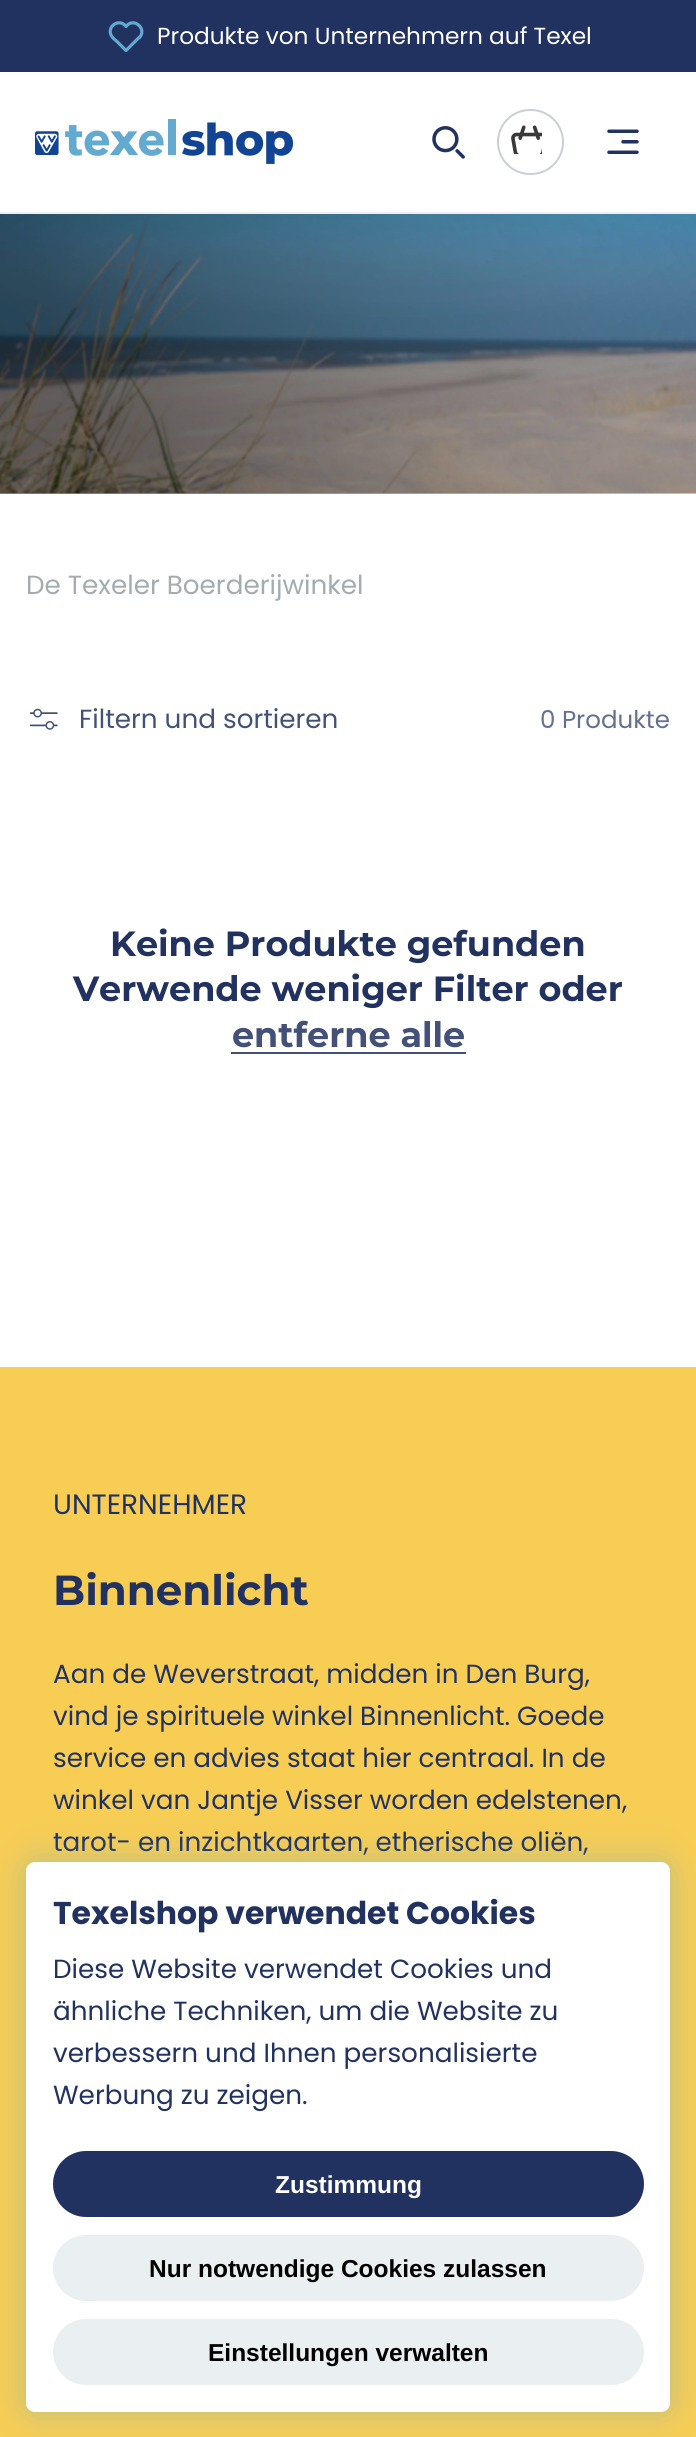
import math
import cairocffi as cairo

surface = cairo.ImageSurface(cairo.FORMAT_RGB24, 696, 2437)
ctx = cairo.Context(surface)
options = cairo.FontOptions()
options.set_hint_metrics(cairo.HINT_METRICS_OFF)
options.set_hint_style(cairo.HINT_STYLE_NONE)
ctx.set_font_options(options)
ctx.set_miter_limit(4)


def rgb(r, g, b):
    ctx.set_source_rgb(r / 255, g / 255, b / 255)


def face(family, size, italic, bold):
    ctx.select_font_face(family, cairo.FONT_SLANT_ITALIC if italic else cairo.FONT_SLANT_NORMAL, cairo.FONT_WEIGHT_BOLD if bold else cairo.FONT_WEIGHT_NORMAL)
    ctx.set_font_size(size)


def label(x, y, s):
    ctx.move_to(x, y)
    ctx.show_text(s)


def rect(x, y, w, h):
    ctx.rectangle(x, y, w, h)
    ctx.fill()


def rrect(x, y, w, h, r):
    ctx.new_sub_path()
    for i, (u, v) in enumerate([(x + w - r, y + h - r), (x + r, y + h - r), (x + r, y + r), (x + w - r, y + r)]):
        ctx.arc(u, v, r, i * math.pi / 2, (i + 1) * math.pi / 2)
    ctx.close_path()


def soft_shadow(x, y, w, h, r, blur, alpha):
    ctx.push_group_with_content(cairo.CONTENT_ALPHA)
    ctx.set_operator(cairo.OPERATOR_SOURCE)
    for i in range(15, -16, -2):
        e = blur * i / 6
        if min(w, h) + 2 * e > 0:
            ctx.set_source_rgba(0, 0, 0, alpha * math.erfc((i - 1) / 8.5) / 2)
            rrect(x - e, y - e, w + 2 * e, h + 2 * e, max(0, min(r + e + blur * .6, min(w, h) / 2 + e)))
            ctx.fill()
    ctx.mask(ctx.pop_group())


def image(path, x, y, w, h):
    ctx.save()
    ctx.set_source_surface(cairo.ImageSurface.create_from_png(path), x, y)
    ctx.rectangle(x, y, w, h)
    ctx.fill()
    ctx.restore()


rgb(255, 255, 255)
ctx.paint()
rgb(237, 239, 242)
rect(0, 212, 696, 2)
rgb(34, 50, 96)
rect(0, 0, 696, 72)
ctx.new_path()
ctx.move_to(139, 37.5)
ctx.line_to(126, 50.5)
ctx.line_to(117.5, 42)
ctx.curve_to(115.5, 40, 113, 38.5, 111.5, 36)
ctx.curve_to(106, 26.5, 119.5, 17.5, 126, 26.5)
ctx.curve_to(133.5, 16.5, 148, 29, 139, 38)
rgb(98, 170, 209)
ctx.set_line_width(3.2)
ctx.set_line_cap(cairo.LINE_CAP_ROUND)
ctx.set_line_join(cairo.LINE_JOIN_ROUND)
ctx.stroke()
face('Poppins', 23.25, 0, 0)
rgb(255, 255, 255)
label(157, 44, 'Produkte von Unternehmern auf Texel')
image('image0.png', 35, 119, 259, 45)
image('image1.png', 432, 126, 33, 33)
rrect(498, 110, 65, 64, 32)
rgb(203, 208, 212)
ctx.set_line_width(2)
ctx.set_line_cap(cairo.LINE_CAP_BUTT)
ctx.set_line_join(cairo.LINE_JOIN_MITER)
ctx.stroke()
image('image2.png', 511, 125, 31, 29)
image('image3.png', 607, 129, 32, 25)
rgb(233, 235, 240)
rect(0, 493, 696, 1)
image('image4.png', 0, 214, 696, 280)
gradient = cairo.LinearGradient(39, 554, 657, 153)
gradient.add_color_stop_rgba(0.2, 0, 0, 0, 0.4)
gradient.add_color_stop_rgba(1, 0, 0, 0, 0)
ctx.set_source(gradient)
rect(0, 214, 696, 280)
face('Poppins', 26.25, 0, 0)
rgb(164, 172, 178)
label(26, 594, 'De Texeler Boerderijwinkel')
image('image5.png', 29, 708, 29, 22)
rgb(67, 81, 120)
label(79, 728, 'Filtern und sortieren')
face('Poppins', 24.5, 0, 0)
rgb(100, 112, 144)
label(540, 728, '0 Produkte')
face('Montserrat', 35, 0, 1)
rgb(34, 50, 96)
label(110, 956, 'Keine Produkte gefunden')
label(73, 1001, 'Verwende weniger Filter oder')
rgb(67, 81, 120)
label(232, 1047, 'entferne alle')
rect(231, 1052, 235, 2)
rgb(247, 205, 84)
rect(0, 1367, 696, 1070)
face('Poppins', 28, 0, 0)
rgb(34, 50, 96)
label(53, 1514, 'UNTERNEHMER')
face('Montserrat', 42, 0, 1)
label(53, 1605, 'Binnenlicht')
face('Poppins', 26.25, 0, 0)
label(53, 1683, 'Aan de Weverstraat, midden in Den Burg,')
label(53, 1725, 'vind je spirituele winkel Binnenlicht. Goede')
label(53, 1767, 'service en advies staat hier centraal. In de')
label(53, 1809, 'winkel van Jantje Visser worden edelstenen,')
label(53, 1851, 'tarot- en inzichtkaarten, etherische oliën,')
rgb(98, 170, 209)
soft_shadow(26, 1862, 644, 550, 9, 17.5, 0.4)
rgb(255, 255, 255)
rrect(26, 1862, 644, 550, 9)
ctx.fill()
face('Poppins', 31.5, 0, 1)
rgb(34, 50, 96)
label(53, 1924, 'Texelshop verwendet Cookies')
face('Poppins', 26.25, 0, 0)
label(53, 1978, 'Diese Website verwendet Cookies und')
label(53, 2020, 'ähnliche Techniken, um die Website zu')
label(53, 2062, 'verbessern und Ihnen personalisierte')
label(53, 2104, 'Werbung zu zeigen.')
rrect(53, 2151, 591, 66, 33)
ctx.fill()
face('Liberation Sans', 24.5, 0, 1)
rgb(255, 255, 255)
label(275, 2193, 'Zustimmung')
rgb(234, 239, 242)
rrect(53, 2235, 591, 66, 33)
ctx.fill()
rgb(0, 0, 0)
label(149, 2277, 'Nur notwendige Cookies zulassen')
rgb(234, 239, 242)
rrect(53, 2319, 591, 66, 33)
ctx.fill()
rgb(0, 0, 0)
label(208, 2361, 'Einstellungen verwalten')
surface.write_to_png('render.png')
